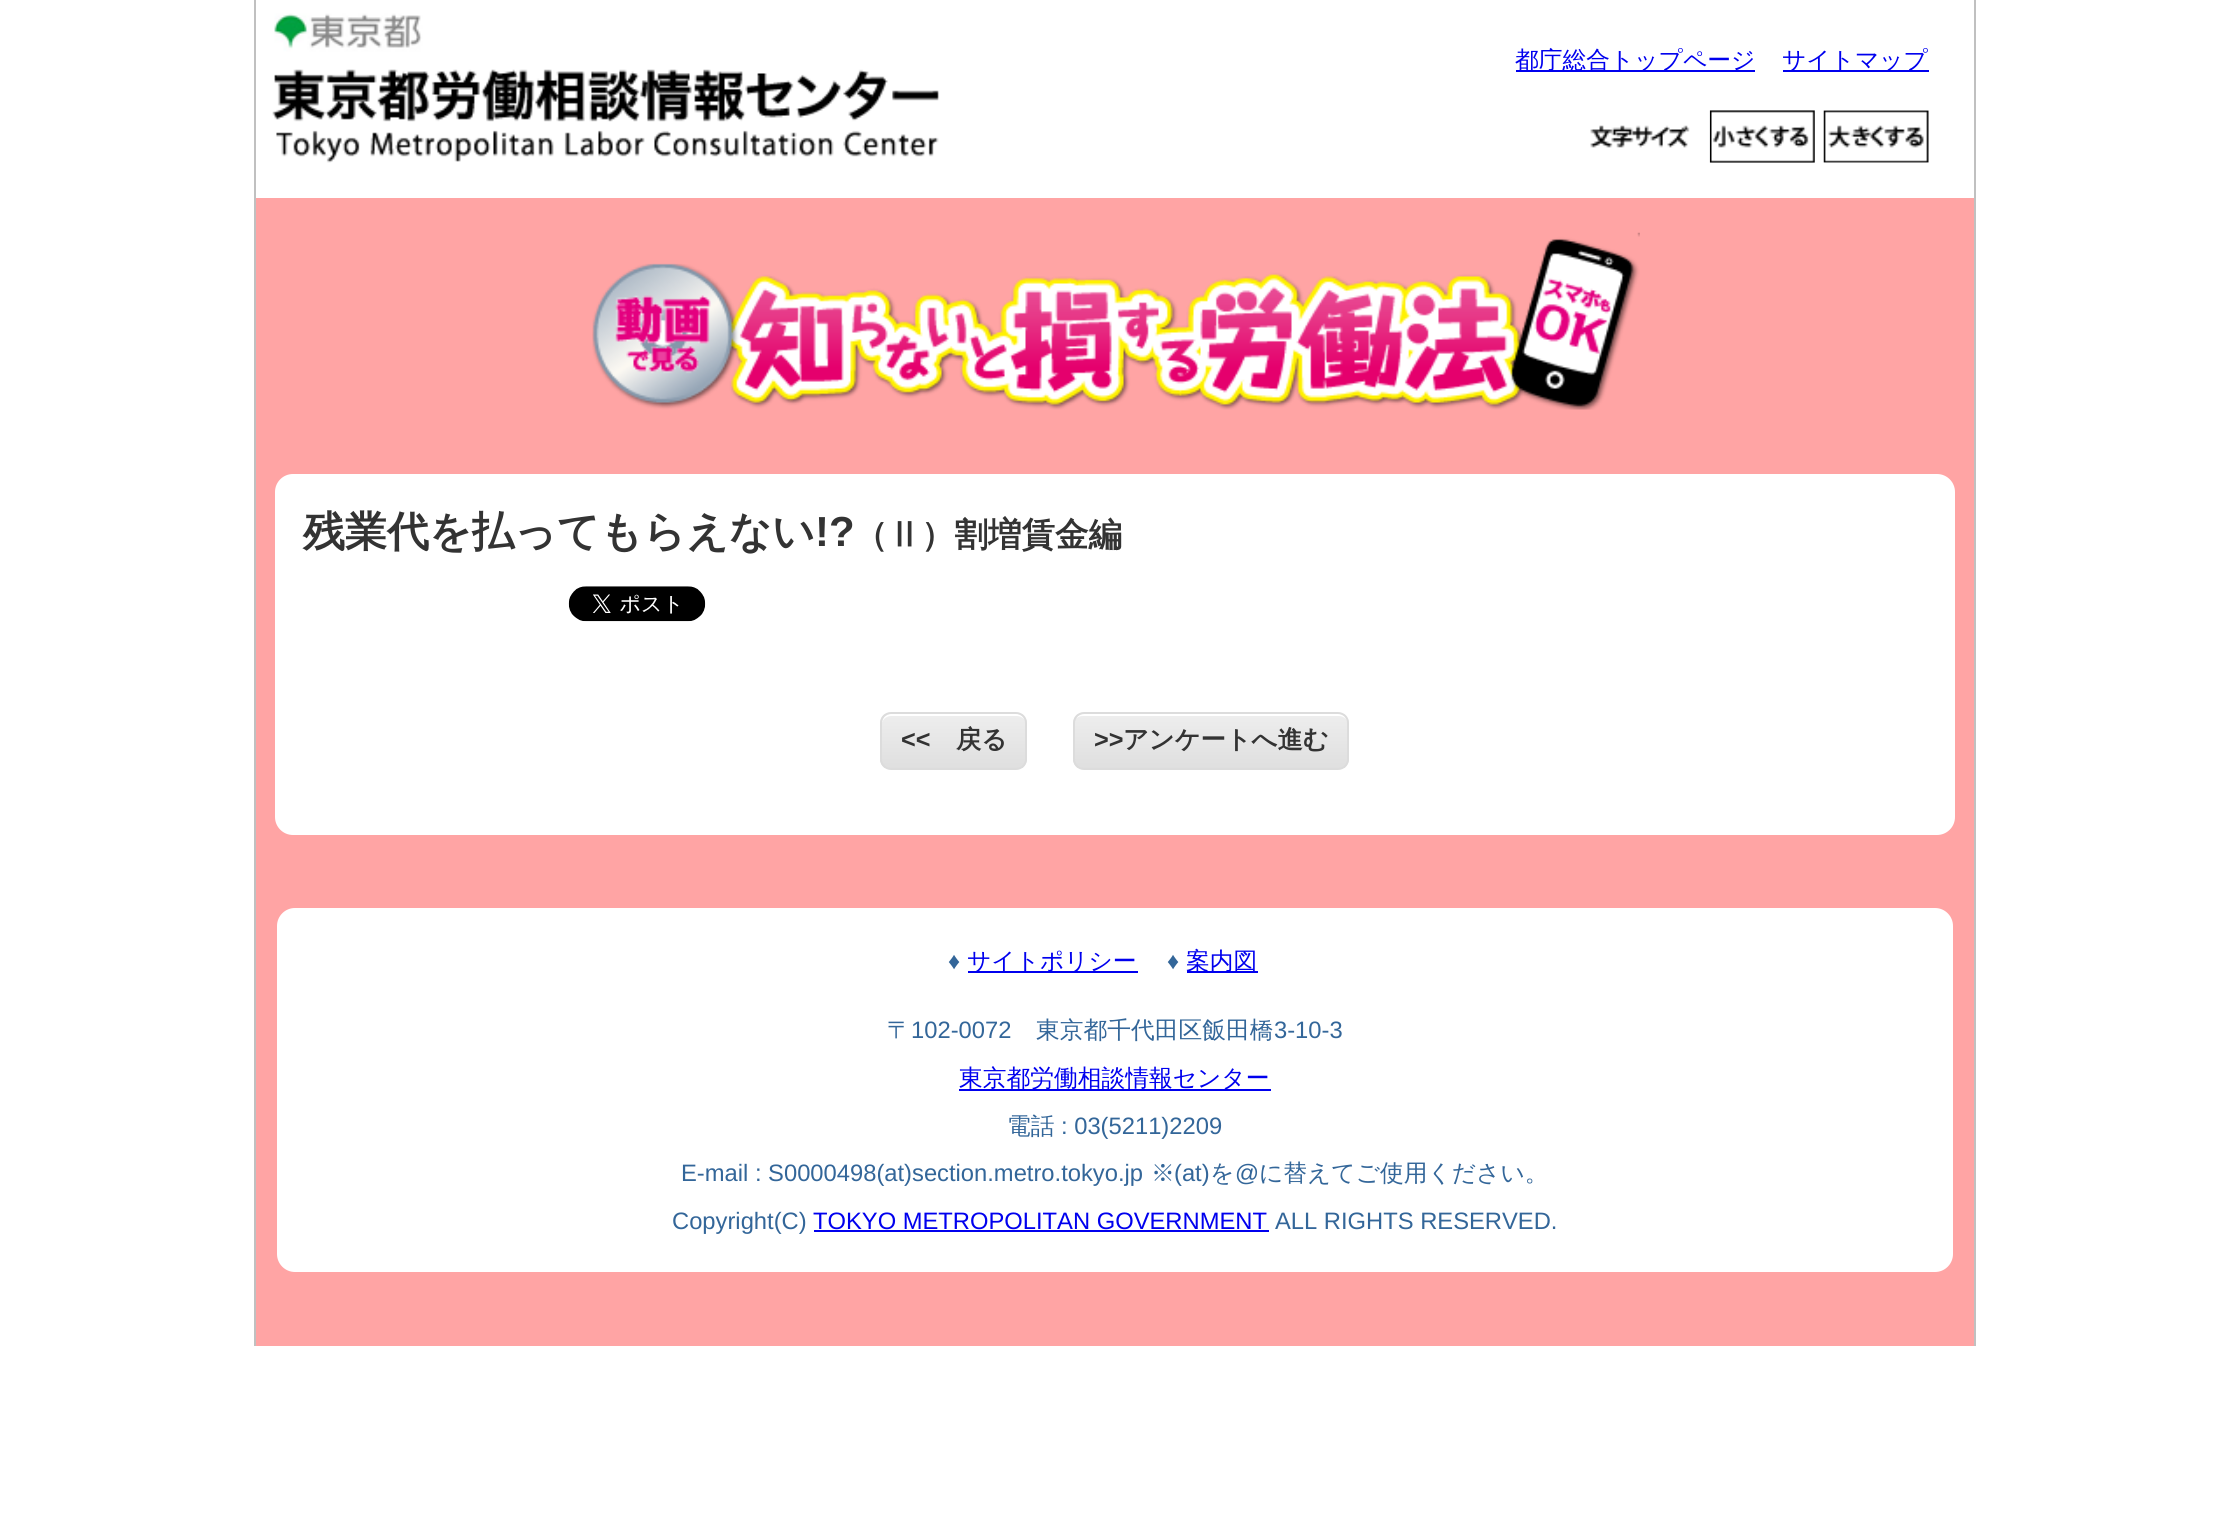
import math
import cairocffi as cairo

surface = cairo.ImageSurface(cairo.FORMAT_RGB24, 2229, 1535)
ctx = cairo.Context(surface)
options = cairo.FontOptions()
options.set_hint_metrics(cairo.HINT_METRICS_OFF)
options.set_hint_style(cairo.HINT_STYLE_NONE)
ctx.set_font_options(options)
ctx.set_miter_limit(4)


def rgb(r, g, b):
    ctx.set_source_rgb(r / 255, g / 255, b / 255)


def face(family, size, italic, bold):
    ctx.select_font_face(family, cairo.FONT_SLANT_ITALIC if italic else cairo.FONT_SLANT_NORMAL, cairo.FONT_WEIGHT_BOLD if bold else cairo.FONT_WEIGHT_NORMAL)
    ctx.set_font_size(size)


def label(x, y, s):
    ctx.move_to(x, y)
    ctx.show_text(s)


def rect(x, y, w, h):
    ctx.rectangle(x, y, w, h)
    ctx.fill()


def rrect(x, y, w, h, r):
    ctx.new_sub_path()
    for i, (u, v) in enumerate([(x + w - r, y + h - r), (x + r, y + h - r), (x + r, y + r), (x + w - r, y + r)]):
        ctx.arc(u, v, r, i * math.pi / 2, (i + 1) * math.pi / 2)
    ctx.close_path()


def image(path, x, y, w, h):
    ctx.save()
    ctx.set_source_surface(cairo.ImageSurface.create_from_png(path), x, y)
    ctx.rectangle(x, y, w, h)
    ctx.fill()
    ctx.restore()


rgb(255, 255, 255)
ctx.paint()
rgb(192, 192, 192)
rect(1974, 0, 2, 1346)
rect(254, 0, 2, 1346)
image('image0.png', 272, 13, 667, 150)
rgb(0, 0, 238)
rect(1516, 70, 239, 2)
face('WenQuanYi Zen Hei Medium', 23.75, 0, 0)
label(1515, 68, '都庁総合トップページ')
rect(1783, 70, 146, 2)
label(1782, 68, 'サイトマップ')
image('image1.png', 1590, 125, 100, 23)
image('image2.png', 1709, 110, 106, 53)
image('image3.png', 1823, 110, 106, 53)
rgb(255, 164, 164)
rect(256, 198, 1718, 1148)
image('image4.png', 592, 232, 1048, 178)
rgb(255, 255, 255)
rrect(275, 474, 1680, 361, 18)
ctx.fill()
face('WenQuanYi Zen Hei', 42, 0, 1)
rgb(51, 51, 51)
label(303, 546, '残業代を払ってもらえない')
face('Liberation Sans', 42, 0, 1)
label(815, 546, '!?')
face('WenQuanYi Zen Hei', 33.5, 0, 1)
label(854, 546, '（Ⅱ）割増賃金編')
image('image5.png', 568, 586, 138, 36)
ctx.save()
rrect(880, 712, 147, 58, 11)
ctx.clip()
gradient = cairo.LinearGradient(954, 714, 954, 768)
gradient.add_color_stop_rgba(0.05, 0.929, 0.929, 0.929, 1)
gradient.add_color_stop_rgba(1, 0.875, 0.875, 0.875, 1)
ctx.set_source(gradient)
rect(880, 714, 147, 54)
ctx.restore()
rgb(255, 255, 255)
ctx.new_path()
ctx.move_to(891, 716)
ctx.line_to(1017, 716)
ctx.curve_to(1022, 716, 1026, 720, 1026, 724)
ctx.curve_to(1026, 709, 1005, 714, 996, 714)
ctx.line_to(912, 714)
ctx.curve_to(903, 714, 882, 709, 882, 724)
ctx.curve_to(882, 720, 886, 716, 891, 716)
ctx.close_path()
ctx.fill()
rrect(881, 713, 145, 56, 10)
rgb(220, 220, 220)
ctx.stroke()
face('Liberation Sans', 25.25, 0, 1)
rgb(51, 51, 51)
label(901, 748, '<<')
face('WenQuanYi Zen Hei', 25.25, 0, 1)
label(956, 748, '戻る')
ctx.save()
rrect(1073, 712, 276, 58, 11)
ctx.clip()
gradient = cairo.LinearGradient(1211, 714, 1211, 768)
gradient.add_color_stop_rgba(0.05, 0.929, 0.929, 0.929, 1)
gradient.add_color_stop_rgba(1, 0.875, 0.875, 0.875, 1)
ctx.set_source(gradient)
rect(1073, 714, 276, 54)
ctx.restore()
rgb(255, 255, 255)
ctx.new_path()
ctx.move_to(1083, 716)
ctx.line_to(1339, 716)
ctx.curve_to(1344, 716, 1348, 720, 1348, 724)
ctx.line_to(1348, 723)
ctx.curve_to(1348, 718, 1344, 714, 1339, 714)
ctx.line_to(1084, 714)
ctx.curve_to(1080, 714, 1077, 716, 1076, 719)
ctx.curve_to(1077, 717, 1080, 716, 1083, 716)
ctx.close_path()
ctx.fill()
rrect(1074, 713, 274, 56, 10)
rgb(220, 220, 220)
ctx.stroke()
face('Liberation Sans', 25.25, 0, 1)
rgb(51, 51, 51)
label(1094, 748, '>>')
face('WenQuanYi Zen Hei', 25.25, 0, 1)
label(1123, 748, 'アンケートへ進む')
rgb(255, 255, 255)
rrect(277, 908, 1676, 364, 18)
ctx.fill()
face('Liberation Sans', 23.75, 0, 0)
rgb(51, 102, 153)
label(948, 969, '♦')
rgb(0, 0, 238)
rect(968, 971, 170, 2)
face('WenQuanYi Zen Hei Medium', 23.75, 0, 0)
label(967, 969, 'サイトポリシー')
face('Liberation Sans', 23.75, 0, 0)
rgb(51, 102, 153)
label(1167, 969, '♦')
rgb(0, 0, 238)
rect(1187, 971, 71, 2)
face('WenQuanYi Zen Hei Medium', 23.75, 0, 0)
label(1186, 969, '案内図')
rgb(51, 102, 153)
label(887, 1038, '〒')
face('Liberation Sans', 23.75, 0, 0)
label(911, 1038, '102-0072')
face('WenQuanYi Zen Hei Medium', 23.75, 0, 0)
label(1036, 1038, '東京都千代田区飯田橋')
face('Liberation Sans', 23.75, 0, 0)
label(1274, 1038, '3-10-3')
rgb(0, 0, 238)
rect(959, 1089, 312, 2)
face('WenQuanYi Zen Hei Medium', 23.75, 0, 0)
label(959, 1086, '東京都労働相談情報センター')
rgb(51, 102, 153)
label(1007, 1134, '電話')
face('Liberation Sans', 23.75, 0, 0)
label(1061, 1134, ': 03(5211)2209')
label(681, 1181, 'E-mail : S0000498(at)section.metro.tokyo.jp')
face('WenQuanYi Zen Hei Medium', 23.75, 0, 0)
label(1151, 1181, '※')
face('Liberation Sans', 23.75, 0, 0)
label(1174, 1181, '(at)')
face('WenQuanYi Zen Hei Medium', 23.75, 0, 0)
label(1210, 1181, 'を')
face('Liberation Sans', 23.75, 0, 0)
label(1235, 1181, '@')
face('WenQuanYi Zen Hei Medium', 23.75, 0, 0)
label(1259, 1181, 'に替えてご使用ください。')
face('Liberation Sans', 23.75, 0, 0)
label(672, 1229, 'Copyright(C)')
rgb(0, 0, 238)
label(813, 1229, 'TOKYO METROPOLITAN GOVERNMENT')
rect(814, 1230, 455, 2)
rgb(51, 102, 153)
label(1275, 1229, 'ALL RIGHTS RESERVED.')
surface.write_to_png('render.png')
